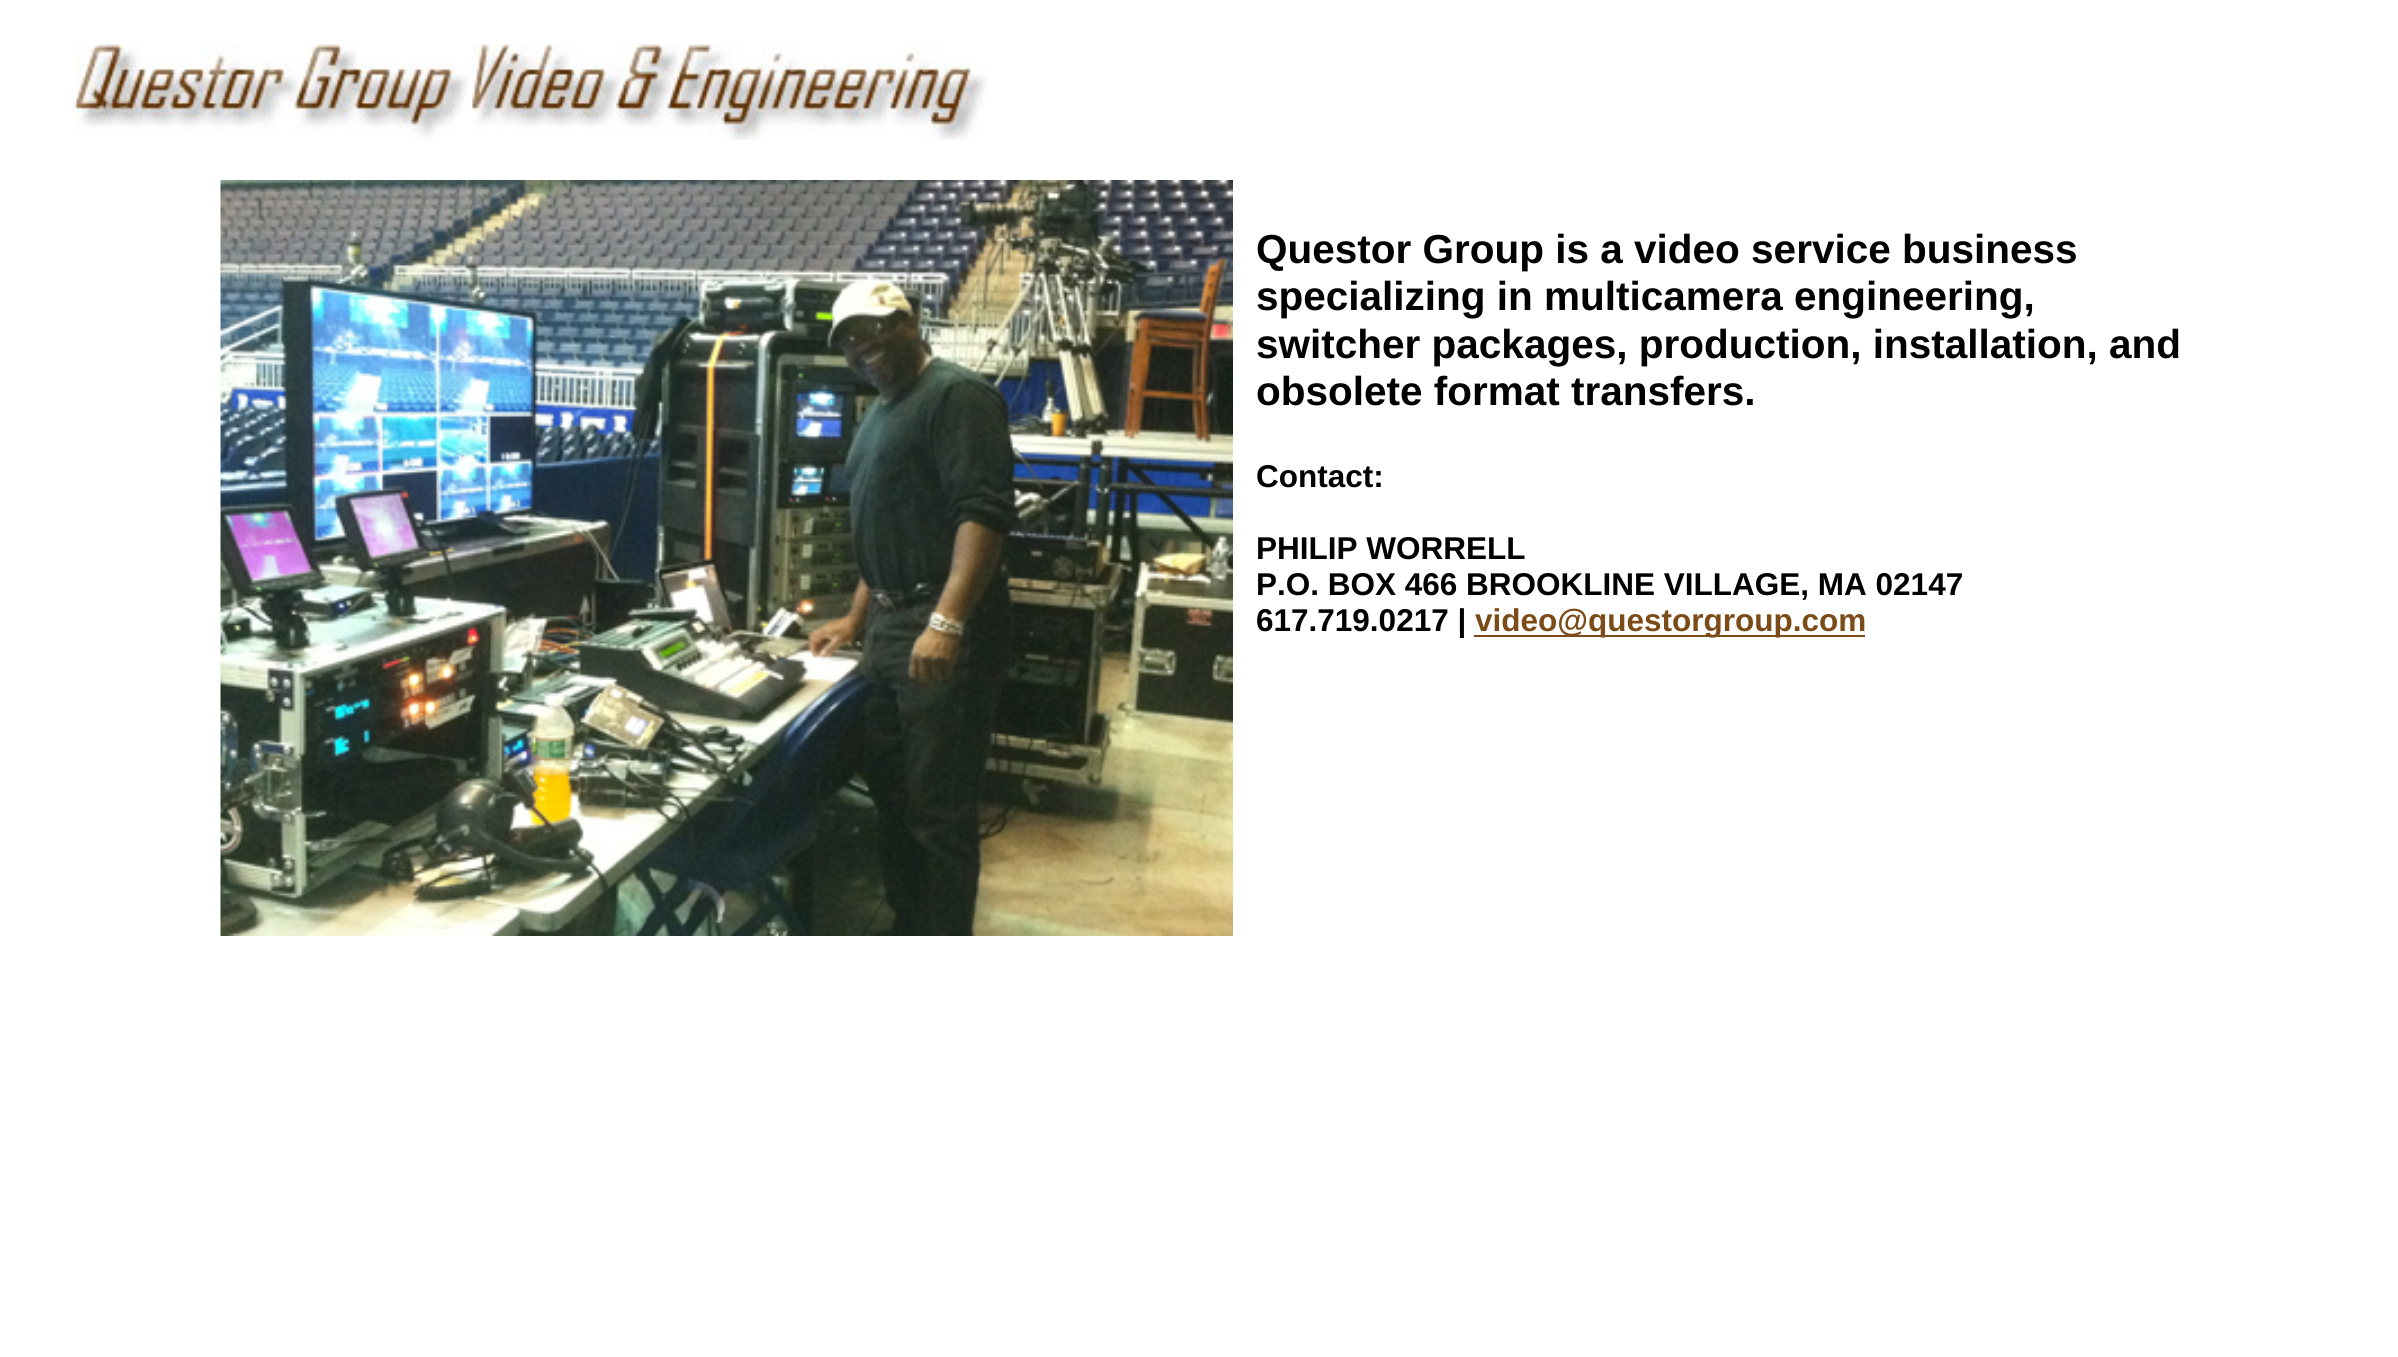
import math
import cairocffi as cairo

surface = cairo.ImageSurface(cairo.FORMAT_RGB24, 2398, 1357)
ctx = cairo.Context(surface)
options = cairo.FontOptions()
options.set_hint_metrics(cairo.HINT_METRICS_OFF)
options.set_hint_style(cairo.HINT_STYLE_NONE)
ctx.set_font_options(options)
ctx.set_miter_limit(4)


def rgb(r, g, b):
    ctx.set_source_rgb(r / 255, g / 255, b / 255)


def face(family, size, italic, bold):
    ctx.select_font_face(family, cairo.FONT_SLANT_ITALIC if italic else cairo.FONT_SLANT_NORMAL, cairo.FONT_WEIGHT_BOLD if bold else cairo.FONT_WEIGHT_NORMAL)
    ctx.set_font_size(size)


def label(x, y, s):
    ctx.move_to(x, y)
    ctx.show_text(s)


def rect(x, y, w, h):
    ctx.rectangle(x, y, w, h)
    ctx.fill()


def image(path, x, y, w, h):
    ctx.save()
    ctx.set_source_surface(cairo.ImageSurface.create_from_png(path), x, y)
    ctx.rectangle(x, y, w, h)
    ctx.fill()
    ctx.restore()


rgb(255, 255, 255)
ctx.paint()
image('image0.png', 72, 44, 916, 96)
image('image1.png', 220, 180, 1013, 756)
face('Liberation Sans', 40.5, 0, 1)
rgb(0, 0, 0)
label(1256, 263, 'Questor Group is a video service business')
label(1256, 310, 'specializing in multicamera engineering,')
label(1256, 358, 'switcher packages, production, installation, and')
label(1256, 405, 'obsolete format transfers.')
face('Liberation Sans', 31.5, 0, 1)
label(1256, 487, 'Contact:')
label(1256, 559, 'PHILIP WORRELL')
label(1256, 595, 'P.O. BOX 466 BROOKLINE VILLAGE, MA 02147')
label(1256, 631, '617.719.0217 |')
rgb(123, 76, 24)
rect(1474, 635, 391, 2)
label(1475, 631, 'video@questorgroup.com')
surface.write_to_png('render.png')
